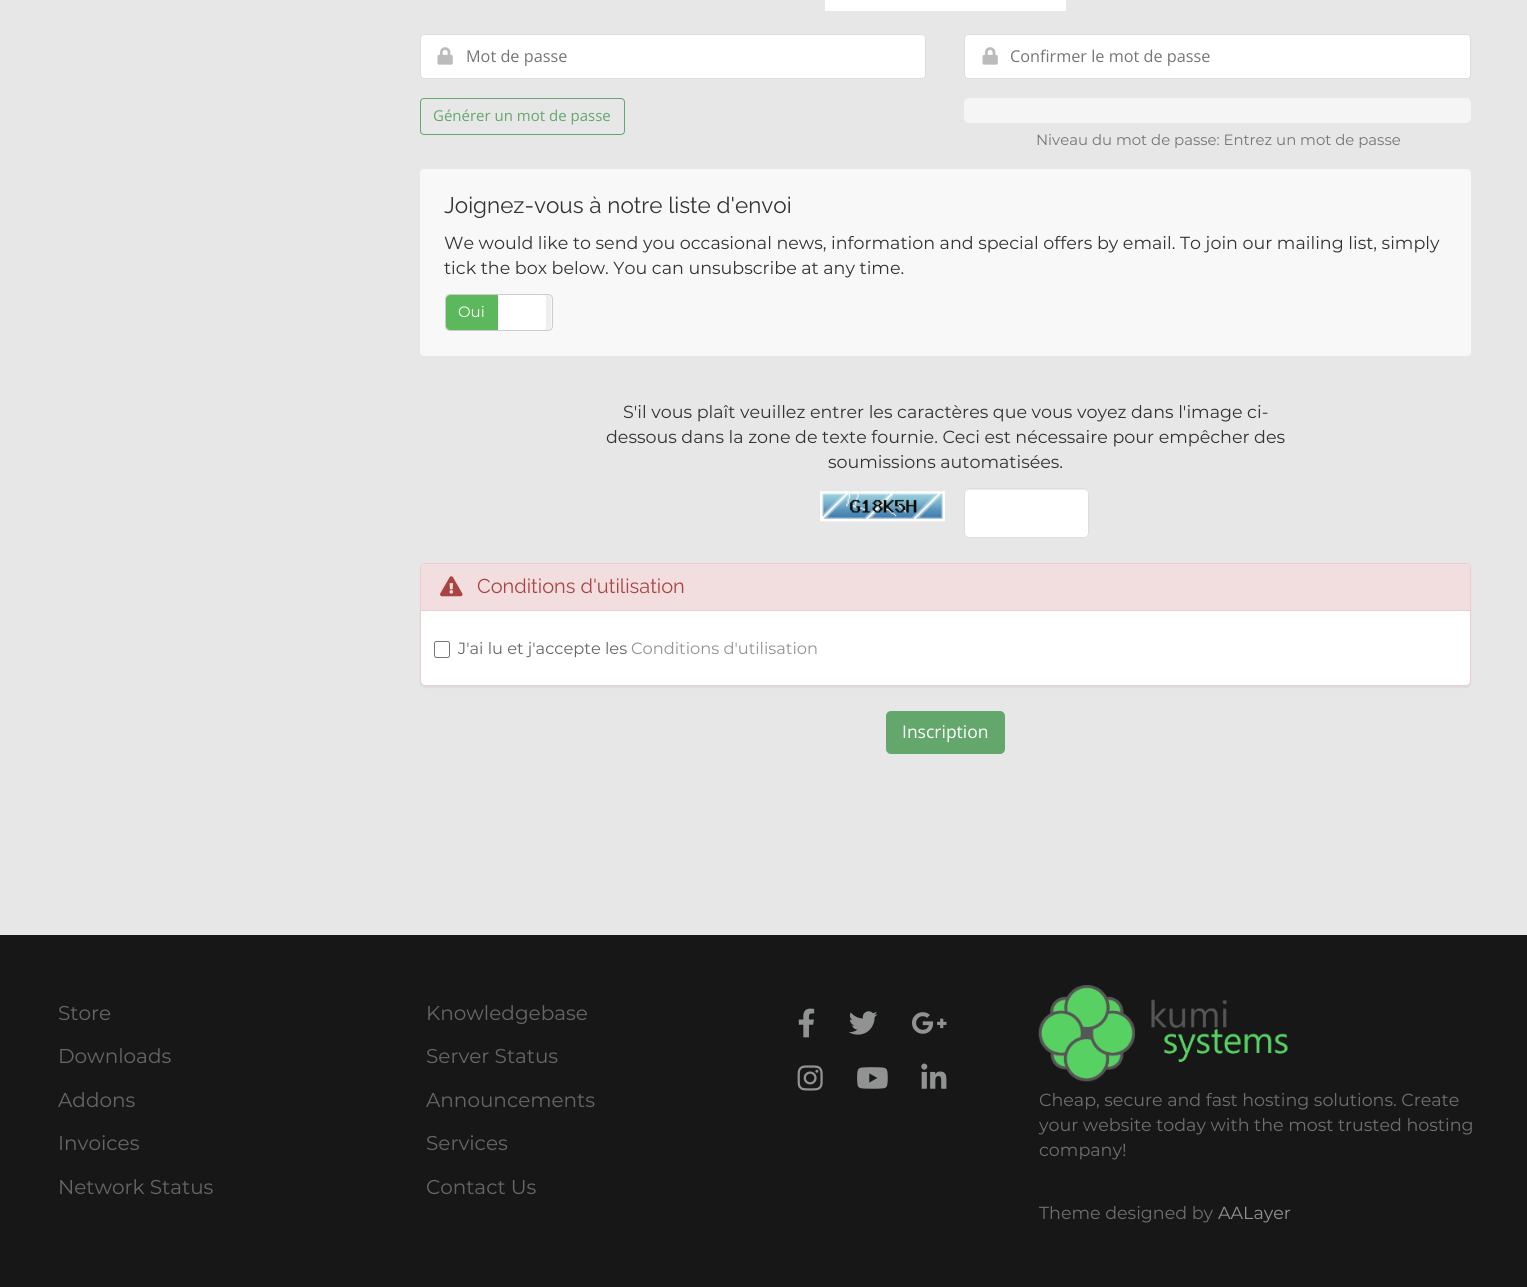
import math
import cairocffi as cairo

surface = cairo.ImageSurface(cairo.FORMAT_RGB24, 1527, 1287)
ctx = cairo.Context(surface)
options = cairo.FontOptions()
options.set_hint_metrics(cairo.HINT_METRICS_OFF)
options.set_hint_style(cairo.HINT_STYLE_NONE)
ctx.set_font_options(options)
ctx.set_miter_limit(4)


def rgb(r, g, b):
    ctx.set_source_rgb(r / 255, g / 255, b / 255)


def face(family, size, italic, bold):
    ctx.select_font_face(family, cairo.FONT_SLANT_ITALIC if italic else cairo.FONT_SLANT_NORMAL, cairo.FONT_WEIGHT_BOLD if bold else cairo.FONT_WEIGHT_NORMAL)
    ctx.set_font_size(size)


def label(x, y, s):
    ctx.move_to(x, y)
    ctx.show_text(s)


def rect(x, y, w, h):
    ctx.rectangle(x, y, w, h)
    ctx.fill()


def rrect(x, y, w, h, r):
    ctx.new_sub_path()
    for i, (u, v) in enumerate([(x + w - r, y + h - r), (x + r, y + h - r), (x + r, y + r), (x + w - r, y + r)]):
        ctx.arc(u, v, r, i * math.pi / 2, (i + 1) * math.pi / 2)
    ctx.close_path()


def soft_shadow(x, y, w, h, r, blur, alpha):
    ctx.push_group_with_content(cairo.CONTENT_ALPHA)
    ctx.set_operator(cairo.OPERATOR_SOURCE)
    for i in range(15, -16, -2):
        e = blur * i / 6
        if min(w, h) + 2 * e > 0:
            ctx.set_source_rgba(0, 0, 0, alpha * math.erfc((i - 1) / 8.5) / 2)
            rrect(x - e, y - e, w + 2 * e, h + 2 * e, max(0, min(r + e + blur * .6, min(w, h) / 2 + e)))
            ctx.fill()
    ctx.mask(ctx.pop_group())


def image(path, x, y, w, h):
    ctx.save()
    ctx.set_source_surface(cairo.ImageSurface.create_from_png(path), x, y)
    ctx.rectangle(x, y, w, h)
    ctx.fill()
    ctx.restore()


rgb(231, 231, 231)
ctx.paint()
rgb(255, 255, 255)
rect(825, 0, 241, 11)
rrect(420.5, 34.5, 505, 44, 3.5)
ctx.fill_preserve()
rgb(221, 221, 221)
ctx.set_line_width(1)
ctx.stroke()
image('image0.png', 437, 47, 16, 18)
face('Open Sans', 16.25, 0, 0)
rgb(117, 117, 117)
label(466, 62, 'Mot de passe')
rgb(255, 255, 255)
rrect(964.5, 34.5, 506, 44, 3.5)
ctx.fill_preserve()
rgb(221, 221, 221)
ctx.stroke()
image('image0.png', 982, 47, 16, 18)
rgb(117, 117, 117)
label(1010, 62, 'Confirmer le mot de passe')
rrect(420.5, 98.5, 204, 36, 3.5)
rgb(100, 167, 108)
ctx.stroke()
face('Open Sans', 15, 0, 0)
label(433, 121, 'Générer un mot de passe')
rgb(245, 245, 245)
rrect(964, 98, 507, 25, 5)
ctx.fill()
face('Montserrat', 14.9, 0, 0)
rgb(117, 117, 117)
label(1036, 145, 'Niveau du mot de passe: Entrez un mot de passe')
rgb(248, 248, 248)
rrect(420, 169, 1051, 187, 4)
ctx.fill()
face('Raleway', 22.5, 0, 0)
rgb(51, 51, 51)
label(444, 213, 'Joignez-vous à notre liste d\'envoi')
face('Montserrat', 17.5, 0, 0)
label(444, 249, 'We would like to send you occasional news, information and special offers by email. To join our mailing list, simply')
label(444, 274, 'tick the box below. You can unsubscribe at any time.')
rrect(445.5, 294.5, 107, 36, 4.5)
rgb(204, 204, 204)
ctx.stroke()
rgb(92, 184, 92)
ctx.new_path()
ctx.move_to(450, 295)
ctx.line_to(498, 295)
ctx.line_to(498, 330)
ctx.line_to(450, 330)
ctx.curve_to(448, 330, 446, 328, 446, 326)
ctx.line_to(446, 299)
ctx.curve_to(446, 297, 448, 295, 450, 295)
ctx.close_path()
ctx.fill()
face('Montserrat', 15, 0, 0)
rgb(255, 255, 255)
label(458, 317, 'Oui')
ctx.new_path()
ctx.move_to(498, 295)
ctx.line_to(542, 295)
ctx.curve_to(544, 295, 546, 297, 546, 299)
ctx.line_to(546, 326)
ctx.curve_to(546, 328, 544, 330, 542, 330)
ctx.line_to(498, 330)
ctx.close_path()
ctx.fill()
rgb(238, 238, 238)
ctx.new_path()
ctx.move_to(546, 295)
ctx.line_to(547, 295)
ctx.curve_to(549, 295, 551, 297, 551, 299)
ctx.line_to(551, 326)
ctx.curve_to(551, 328, 549, 330, 547, 330)
ctx.line_to(546, 330)
ctx.close_path()
ctx.fill()
face('Montserrat', 17.5, 0, 0)
rgb(51, 51, 51)
label(623, 418, 'S\'il vous plaît veuillez entrer les caractères que vous voyez dans l\'image ci-')
label(606, 443, 'dessous dans la zone de texte fournie. Ceci est nécessaire pour empêcher des')
label(828, 468, 'soumissions automatisées.')
image('image1.png', 820, 491, 125, 31)
rgb(255, 255, 255)
rrect(964, 488, 125, 50, 5)
ctx.fill()
rgb(236, 236, 236)
ctx.new_path()
ctx.move_to(969, 490)
ctx.line_to(1084, 490)
ctx.curve_to(1086, 490, 1088, 492, 1088, 494)
ctx.curve_to(1088, 484, 1068, 489, 1065, 489)
ctx.line_to(988, 489)
ctx.curve_to(985, 489, 965, 484, 965, 494)
ctx.curve_to(965, 492, 967, 490, 969, 490)
ctx.close_path()
ctx.fill()
rrect(964.5, 488.5, 124, 49, 4.5)
rgb(221, 221, 221)
ctx.stroke()
rgb(0, 0, 0)
soft_shadow(420, 564, 1051, 124, 5, 0.5, 0.05)
rgb(255, 255, 255)
rrect(420.5, 563.5, 1050, 122, 4.5)
ctx.fill_preserve()
rgb(235, 204, 209)
ctx.stroke()
rgb(242, 222, 222)
ctx.new_path()
ctx.move_to(425, 564)
ctx.line_to(1466, 564)
ctx.curve_to(1468, 564, 1470, 566, 1470, 568)
ctx.line_to(1470, 611)
ctx.line_to(421, 611)
ctx.line_to(421, 568)
ctx.curve_to(421, 566, 423, 564, 425, 564)
ctx.close_path()
ctx.fill()
rgb(235, 204, 209)
rect(421, 610, 1049, 1)
image('image2.png', 440, 576, 23, 21)
face('Raleway', 20, 0, 0)
rgb(169, 68, 66)
label(477, 593, 'Conditions d\'utilisation')
rrect(434.5, 641.5, 15, 16, 2)
rgb(118, 118, 118)
ctx.stroke()
face('Montserrat', 16.25, 0, 0)
rgb(102, 102, 102)
label(458, 654, 'J\'ai lu et j\'accepte les')
rgb(145, 147, 147)
label(631, 654, 'Conditions d\'utilisation')
rgb(100, 167, 108)
rrect(886, 711, 119, 43, 5)
ctx.fill()
face('Open Sans', 17.5, 0, 0)
rgb(255, 255, 255)
label(902, 738, 'Inscription')
rgb(23, 23, 23)
rect(0, 935, 1527, 352)
face('Montserrat', 20, 0, 0)
rgb(102, 102, 102)
label(58, 1020, 'Store')
label(58, 1063, 'Downloads')
label(58, 1107, 'Addons')
label(58, 1150, 'Invoices')
label(58, 1194, 'Network Status')
label(426, 1020, 'Knowledgebase')
label(426, 1063, 'Server Status')
label(426, 1107, 'Announcements')
label(426, 1150, 'Services')
label(426, 1194, 'Contact Us')
image('image3.png', 798, 1008, 17, 30)
image('image4.png', 849, 1011, 29, 24)
image('image5.png', 912, 1012, 35, 22)
image('image6.png', 797, 1065, 26, 26)
image('image7.png', 857, 1067, 31, 22)
image('image8.png', 921, 1063, 26, 26)
image('image9.png', 1038, 985, 250, 97)
face('Montserrat', 17.5, 0, 0)
rgb(111, 111, 111)
label(1039, 1106, 'Cheap, secure and fast hosting solutions. Create')
label(1039, 1131, 'your website today with the most trusted hosting')
label(1039, 1156, 'company!')
label(1039, 1219, 'Theme designed by')
rgb(145, 147, 147)
label(1218, 1219, 'AALayer')
surface.write_to_png('render.png')
